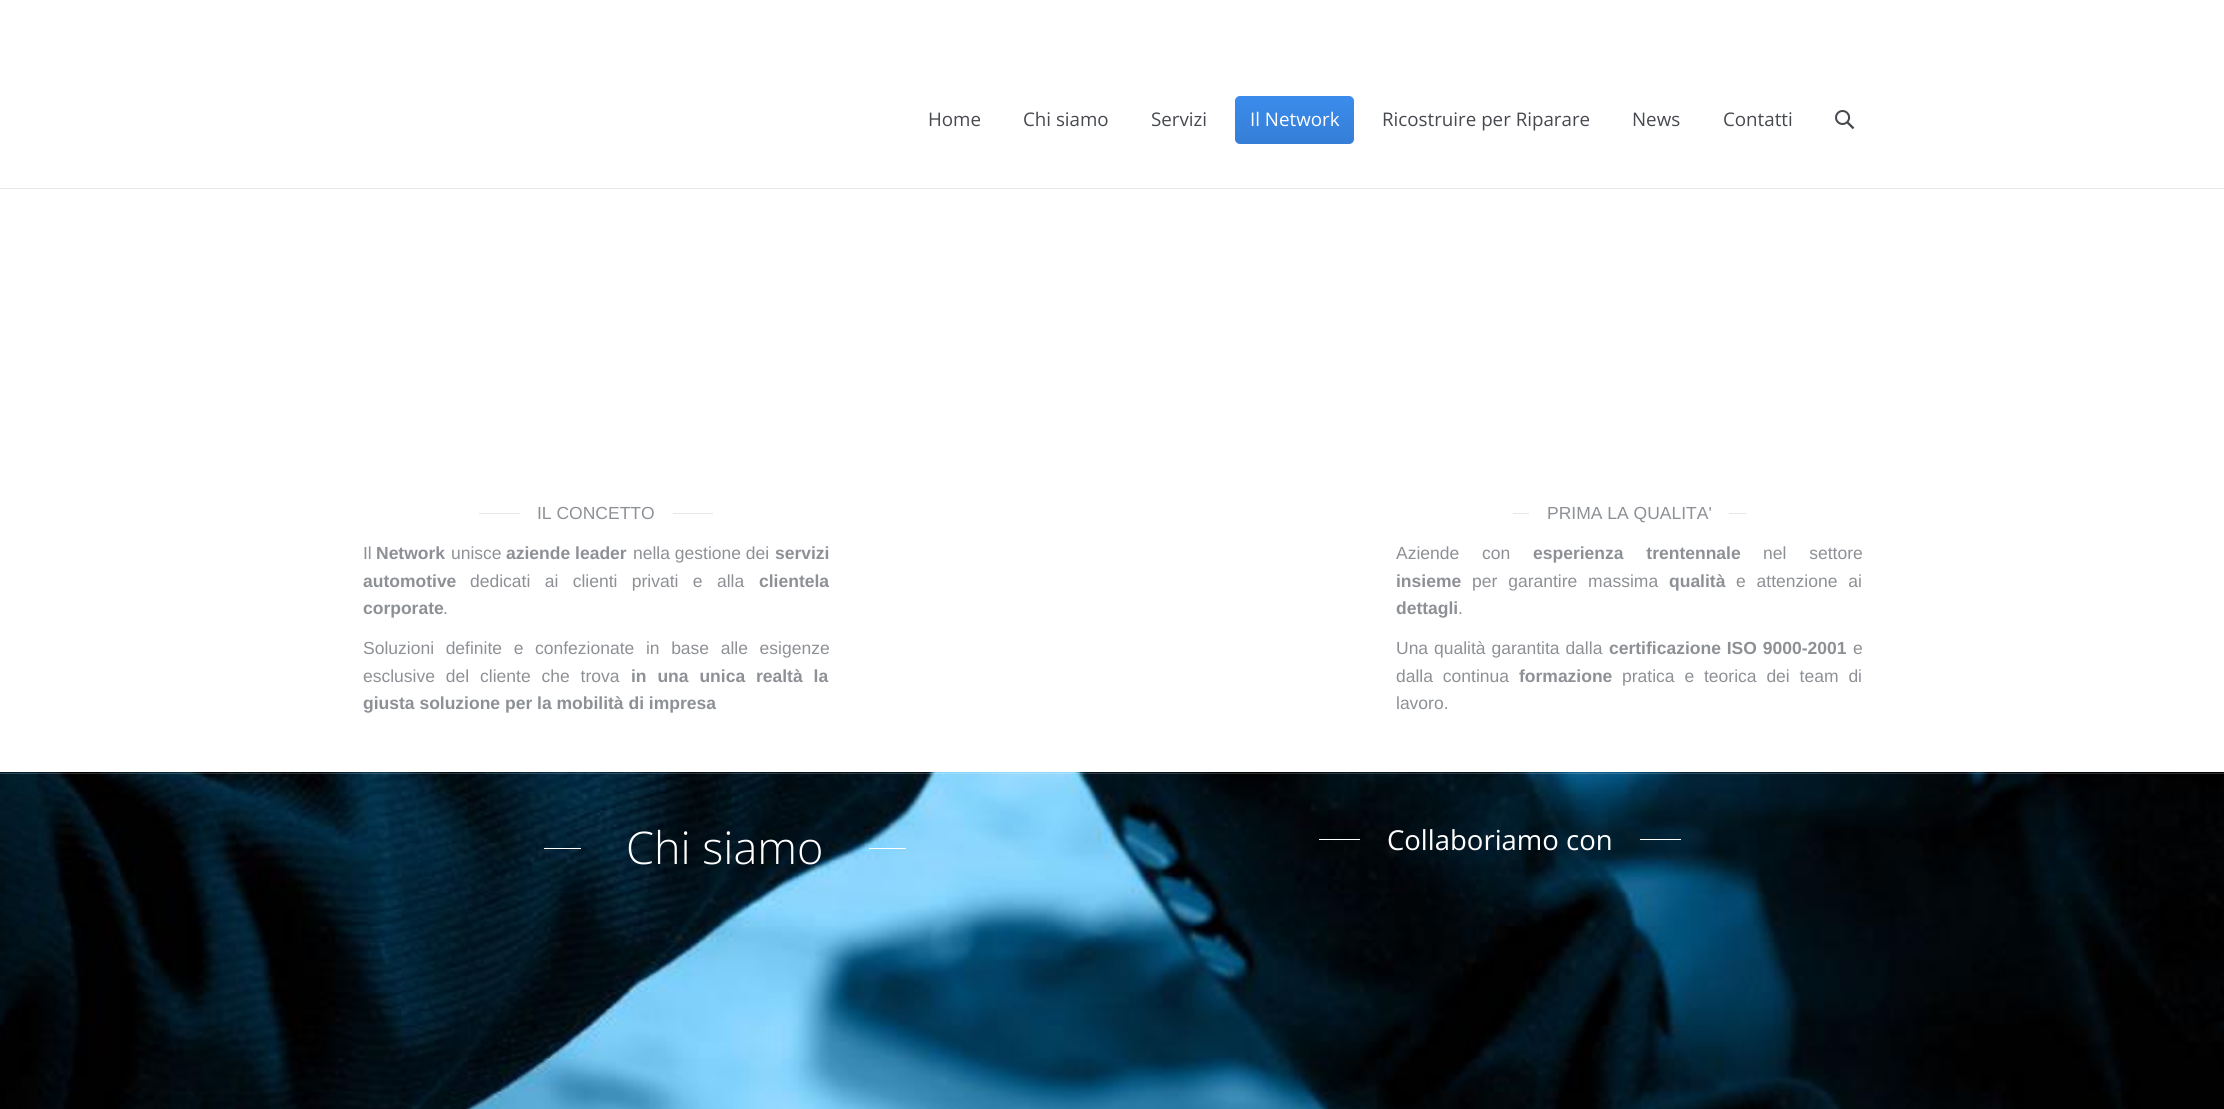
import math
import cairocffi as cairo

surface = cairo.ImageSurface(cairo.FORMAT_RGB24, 2224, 1109)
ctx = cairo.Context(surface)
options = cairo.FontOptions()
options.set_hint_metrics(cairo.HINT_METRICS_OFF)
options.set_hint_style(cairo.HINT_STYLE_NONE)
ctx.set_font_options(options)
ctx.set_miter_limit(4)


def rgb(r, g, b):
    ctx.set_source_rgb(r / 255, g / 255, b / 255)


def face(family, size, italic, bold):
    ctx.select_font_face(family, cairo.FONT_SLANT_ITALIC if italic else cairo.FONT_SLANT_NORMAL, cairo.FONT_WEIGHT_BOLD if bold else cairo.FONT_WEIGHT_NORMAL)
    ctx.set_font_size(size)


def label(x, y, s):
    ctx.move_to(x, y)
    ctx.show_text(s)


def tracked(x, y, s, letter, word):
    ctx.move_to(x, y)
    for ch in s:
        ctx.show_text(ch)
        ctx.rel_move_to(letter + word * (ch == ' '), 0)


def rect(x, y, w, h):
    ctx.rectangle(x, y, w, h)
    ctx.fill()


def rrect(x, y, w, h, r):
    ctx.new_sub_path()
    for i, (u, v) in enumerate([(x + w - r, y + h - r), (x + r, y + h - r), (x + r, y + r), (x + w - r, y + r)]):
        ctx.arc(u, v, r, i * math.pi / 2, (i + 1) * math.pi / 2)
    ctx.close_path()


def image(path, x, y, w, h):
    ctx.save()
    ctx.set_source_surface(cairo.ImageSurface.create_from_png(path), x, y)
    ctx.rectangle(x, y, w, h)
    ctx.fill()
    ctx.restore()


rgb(255, 255, 255)
ctx.paint()
rgb(229, 232, 234)
rect(0, 188, 2224, 1)
face('Open Sans', 18.75, 0, 0)
rgb(71, 73, 80)
label(928, 126, 'Home')
label(1023, 126, 'Chi siamo')
label(1151, 126, 'Servizi')
rgb(59, 140, 237)
rrect(1235, 96, 119, 48, 5)
ctx.fill()
gradient = cairo.LinearGradient(1294, 96, 1294, 144)
gradient.add_color_stop_rgba(0, 0, 0, 0, 0)
gradient.add_color_stop_rgba(1, 0, 0, 0, 0.1)
ctx.set_source(gradient)
rrect(1235, 96, 119, 48, 5)
ctx.fill()
rgb(255, 255, 255)
label(1250, 126, 'Il Network')
rgb(71, 73, 80)
label(1382, 126, 'Ricostruire per Riparare')
label(1632, 126, 'News')
label(1723, 126, 'Contatti')
image('image0.png', 1835, 110, 20, 20)
rgb(229, 232, 234)
rect(479, 513, 41, 1)
face('Liberation Sans', 17.5, 0, 0)
rgb(141, 144, 149)
label(537, 519, 'IL CONCETTO')
rgb(229, 232, 234)
rect(673, 513, 40, 1)
rgb(141, 144, 149)
label(363, 559, 'Il')
face('Liberation Sans', 17.5, 0, 1)
label(376, 559, 'Network')
face('Liberation Sans', 17.5, 0, 0)
label(451, 559, 'unisce')
face('Liberation Sans', 17.5, 0, 1)
label(506, 559, 'aziende leader')
face('Liberation Sans', 17.5, 0, 0)
label(633, 559, 'nella gestione dei')
face('Liberation Sans', 17.5, 0, 1)
label(775, 559, 'servizi')
label(363, 587, 'automotive')
face('Liberation Sans', 17.5, 0, 0)
tracked(470, 587, 'dedicati ai clienti privati e alla', 0, 9.5)
face('Liberation Sans', 17.5, 0, 1)
label(759, 587, 'clientela')
label(363, 614, 'corporate')
face('Liberation Sans', 17.5, 0, 0)
label(443, 614, '.')
tracked(363, 654, 'Soluzioni definite e confezionate in base alle esigenze', 0, 6.75)
tracked(363, 682, 'esclusive del cliente che trova', 0, 6)
face('Liberation Sans', 17.5, 0, 1)
tracked(631, 682, 'in una unica realtà la', 0, 6)
label(363, 709, 'giusta soluzione per la mobilità di impresa')
rgb(229, 232, 234)
rect(1513, 513, 16, 1)
face('Liberation Sans', 17.5, 0, 0)
rgb(141, 144, 149)
label(1547, 519, 'PRIMA LA QUALITA\'')
rgb(229, 232, 234)
rect(1729, 513, 17, 1)
rgb(141, 144, 149)
tracked(1396, 559, 'Aziende con', 0, 18)
face('Liberation Sans', 17.5, 0, 1)
tracked(1533, 559, 'esperienza trentennale', 0, 18)
face('Liberation Sans', 17.5, 0, 0)
tracked(1763, 559, 'nel settore', 0, 18)
face('Liberation Sans', 17.5, 0, 1)
label(1396, 587, 'insieme')
face('Liberation Sans', 17.5, 0, 0)
tracked(1472, 587, 'per garantire massima', 0, 6)
face('Liberation Sans', 17.5, 0, 1)
label(1669, 587, 'qualità')
face('Liberation Sans', 17.5, 0, 0)
tracked(1736, 587, 'e attenzione ai', 0, 6)
face('Liberation Sans', 17.5, 0, 1)
label(1396, 614, 'dettagli')
face('Liberation Sans', 17.5, 0, 0)
label(1458, 614, '.')
tracked(1396, 654, 'Una qualità garantita dalla', 0, 1)
face('Liberation Sans', 17.5, 0, 1)
tracked(1609, 654, 'certificazione ISO 9000-2001', 0, 1)
face('Liberation Sans', 17.5, 0, 0)
label(1853, 654, 'e')
tracked(1396, 682, 'dalla continua', 0, 5)
face('Liberation Sans', 17.5, 0, 1)
label(1519, 682, 'formazione')
face('Liberation Sans', 17.5, 0, 0)
tracked(1622, 682, 'pratica e teorica dei team di', 0, 5)
label(1396, 709, 'lavoro.')
image('image1.png', 0, 772, 2224, 337)
ctx.rectangle(-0.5, 773.5, 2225, 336)
ctx.set_source_rgba(1, 1, 1, 0.18)
ctx.set_line_width(1)
ctx.stroke()
rgb(255, 255, 255)
rect(544, 848, 37, 1)
face('Open Sans Light', 45, 0, 0)
label(626, 864, 'Chi siamo')
rect(869, 848, 37, 1)
rect(1319, 839, 41, 1)
face('Open Sans', 27.5, 0, 0)
label(1387, 850, 'Collaboriamo con')
rect(1640, 839, 41, 1)
surface.write_to_png('render.png')
